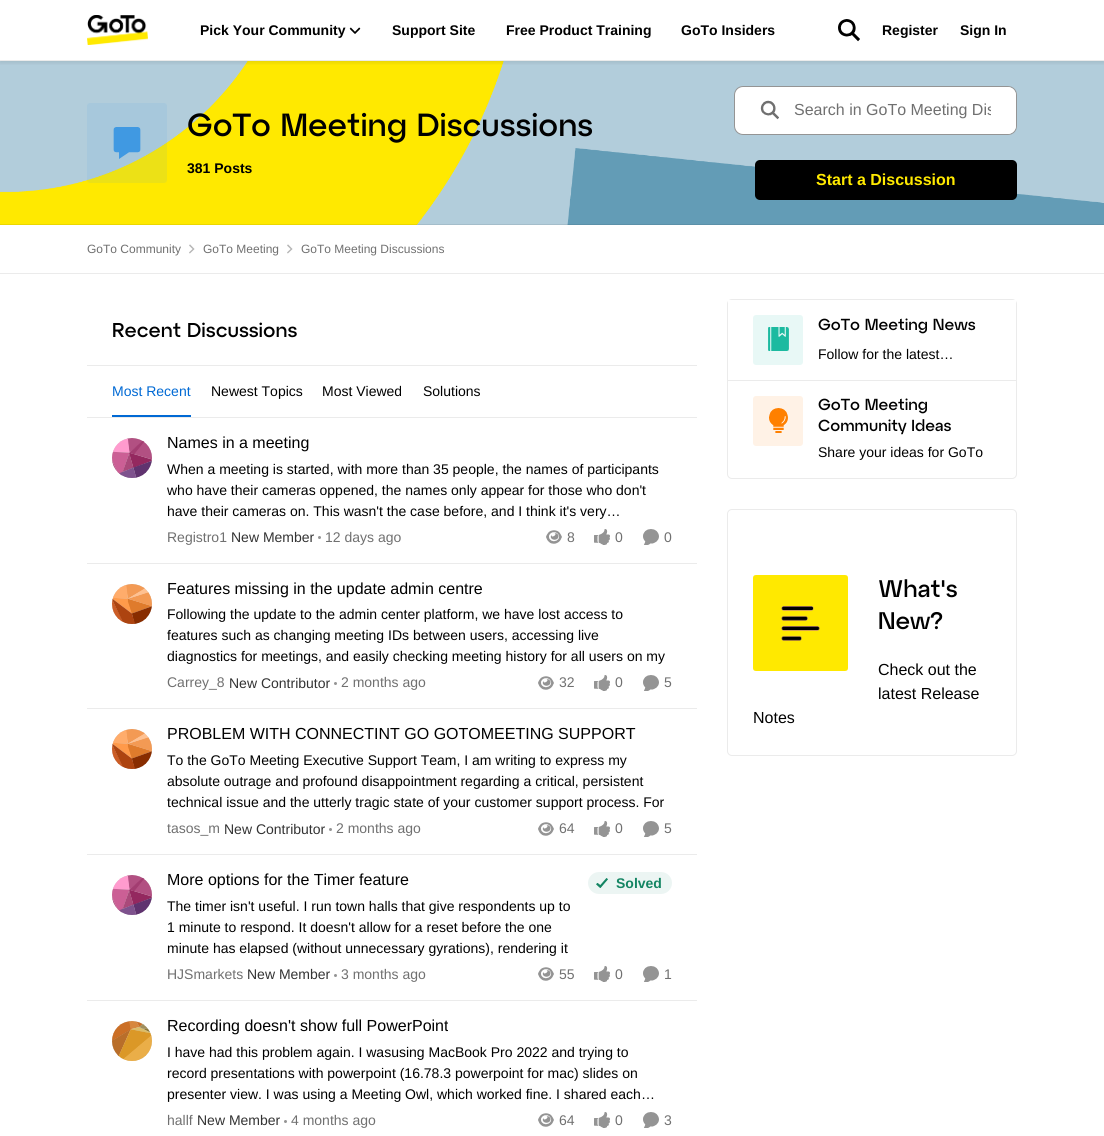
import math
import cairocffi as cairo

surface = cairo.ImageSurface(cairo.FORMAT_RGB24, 1104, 1136)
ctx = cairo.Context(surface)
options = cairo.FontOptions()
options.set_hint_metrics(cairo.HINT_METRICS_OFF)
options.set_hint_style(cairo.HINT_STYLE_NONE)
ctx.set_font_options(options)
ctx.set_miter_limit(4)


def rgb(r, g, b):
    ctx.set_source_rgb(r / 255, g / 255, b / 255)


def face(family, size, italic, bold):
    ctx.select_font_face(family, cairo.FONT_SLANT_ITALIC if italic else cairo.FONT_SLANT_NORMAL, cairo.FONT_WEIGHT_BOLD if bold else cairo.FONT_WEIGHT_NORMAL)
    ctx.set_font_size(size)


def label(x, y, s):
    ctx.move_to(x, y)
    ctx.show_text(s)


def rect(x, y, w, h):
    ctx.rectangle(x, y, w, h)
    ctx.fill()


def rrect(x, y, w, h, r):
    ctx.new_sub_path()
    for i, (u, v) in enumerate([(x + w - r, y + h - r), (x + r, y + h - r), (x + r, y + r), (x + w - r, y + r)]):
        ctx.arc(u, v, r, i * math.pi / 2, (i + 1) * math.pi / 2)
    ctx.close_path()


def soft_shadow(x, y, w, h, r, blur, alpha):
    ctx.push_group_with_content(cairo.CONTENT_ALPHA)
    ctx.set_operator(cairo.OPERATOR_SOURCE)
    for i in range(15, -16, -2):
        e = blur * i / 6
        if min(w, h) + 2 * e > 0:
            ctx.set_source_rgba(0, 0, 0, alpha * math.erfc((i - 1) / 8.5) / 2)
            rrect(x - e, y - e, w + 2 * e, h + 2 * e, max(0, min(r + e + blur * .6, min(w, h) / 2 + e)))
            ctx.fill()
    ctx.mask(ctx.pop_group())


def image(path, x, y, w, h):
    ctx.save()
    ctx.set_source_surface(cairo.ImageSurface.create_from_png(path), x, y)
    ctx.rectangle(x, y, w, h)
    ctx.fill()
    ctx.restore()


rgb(255, 255, 255)
ctx.paint()
image('image3.png', 0, 61, 1104, 164)
ctx.save()
ctx.rectangle(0, 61, 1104, 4)
ctx.clip()
rgb(51, 51, 51)
soft_shadow(0, 2, 1104, 61, 0, 2, 0.12)
ctx.restore()
rgb(235, 235, 235)
rect(0, 60, 1104, 1)
image('image0.png', 87, 15, 61, 30)
face('Liberation Sans', 14, 0, 1)
rgb(0, 0, 0)
label(200, 35, 'Pick Your Community')
image('image1.png', 349, 27, 12, 7)
label(392, 35, 'Support Site')
label(506, 35, 'Free Product Training')
label(681, 35, 'GoTo Insiders')
image('image2.png', 838, 19, 22, 23)
label(882, 35, 'Register')
label(960, 35, 'Sign In')
ctx.set_source_rgba(0, 0, 0, 0.08)
rect(0, 224, 1104, 1)
ctx.set_source_rgba(0.251, 0.6, 0.886, 0.1)
rrect(87, 103, 80, 80, 3)
ctx.fill()
image('image4.png', 113, 127, 28, 32)
face('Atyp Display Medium', 32, 0, 0)
rgb(0, 0, 0)
label(187, 136, 'GoTo Meeting Discussions')
face('Liberation Sans', 14, 0, 1)
label(187, 173, '381 Posts')
rgb(255, 255, 255)
rrect(734.5, 86.5, 282, 48, 8.5)
ctx.fill_preserve()
rgb(148, 148, 148)
ctx.set_line_width(1)
ctx.stroke()
image('image5.png', 760, 100, 19, 20)
rgb(255, 255, 255)
ctx.new_path()
ctx.move_to(779, 87)
ctx.line_to(1007, 87)
ctx.curve_to(1012, 87, 1016, 91, 1016, 96)
ctx.line_to(1016, 125)
ctx.curve_to(1016, 130, 1012, 134, 1007, 134)
ctx.line_to(779, 134)
ctx.close_path()
ctx.fill()
ctx.save()
ctx.rectangle(794, 101, 197, 18)
ctx.clip()
face('Liberation Sans', 16, 0, 0)
rgb(112, 112, 112)
label(794, 115, 'Search in GoTo Meeting Dis')
ctx.restore()
rgb(0, 0, 0)
rrect(755, 160, 262, 40, 5)
ctx.fill()
face('Liberation Sans', 16, 0, 1)
rgb(255, 233, 0)
label(816, 185, 'Start a Discussion')
rgb(235, 235, 235)
rect(0, 273, 1104, 1)
face('Liberation Sans', 12, 0, 0)
rgb(112, 112, 112)
label(87, 253, 'GoTo Community')
image('image6.png', 189, 244, 6, 10)
label(203, 253, 'GoTo Meeting')
image('image6.png', 287, 244, 6, 10)
label(301, 253, 'GoTo Meeting Discussions')
rgb(235, 235, 235)
rect(87, 365, 610, 1)
face('Atyp Display Medium', 20, 0, 0)
rgb(0, 0, 0)
label(112, 337, 'Recent Discussions')
rgb(235, 235, 235)
rect(87, 417, 610, 1)
face('Liberation Sans', 14, 0, 0)
rgb(0, 105, 212)
label(112, 396, 'Most Recent')
rect(112, 415, 79, 2)
rgb(0, 0, 0)
label(211, 396, 'Newest Topics')
label(322, 396, 'Most Viewed')
label(423, 396, 'Solutions')
rgb(235, 235, 235)
rect(87, 563, 610, 1)
rgb(217, 217, 217)
ctx.new_path()
ctx.arc(132, 458, 20, 0, 2 * math.pi)
ctx.fill()
image('image7.png', 112, 438, 40, 40)
face('Liberation Sans', 16, 0, 0)
rgb(0, 0, 0)
label(167, 448, 'Names in a meeting')
face('Liberation Sans', 14, 0, 0)
label(167, 474, 'When a meeting is started, with more than 35 people, the names of participants')
label(167, 495, 'who have their cameras oppened, the names only appear for those who don\'t')
label(167, 516, 'have their cameras on. This wasn\'t the case before, and I think it\'s very…')
rgb(112, 112, 112)
label(167, 542, 'Registro1')
rgb(51, 51, 51)
label(231, 542, 'New Member')
rgb(148, 148, 148)
ctx.new_path()
ctx.arc(319.5, 537.5, 1.5, 0, 2 * math.pi)
ctx.fill()
rgb(112, 112, 112)
label(325, 542, '12 days ago')
image('image8.png', 546, 530, 16, 14)
label(567, 542, '8')
image('image9.png', 594, 529, 16, 16)
label(615, 542, '0')
image('image10.png', 643, 529, 16, 16)
label(664, 542, '0')
rgb(235, 235, 235)
rect(87, 708, 610, 1)
rgb(217, 217, 217)
ctx.new_path()
ctx.arc(132, 604, 20, 0, 2 * math.pi)
ctx.fill()
image('image11.png', 112, 584, 40, 40)
face('Liberation Sans', 16, 0, 0)
rgb(0, 0, 0)
label(167, 594, 'Features missing in the update admin centre')
face('Liberation Sans', 14, 0, 0)
label(167, 619, 'Following the update to the admin center platform, we have lost access to')
label(167, 640, 'features such as changing meeting IDs between users, accessing live')
label(167, 661, 'diagnostics for meetings, and easily checking meeting history for all users on my')
rgb(112, 112, 112)
label(167, 687, 'Carrey_8')
rgb(51, 51, 51)
label(229, 688, 'New Contributor')
rgb(148, 148, 148)
ctx.new_path()
ctx.arc(335.5, 683.5, 1.5, 0, 2 * math.pi)
ctx.fill()
rgb(112, 112, 112)
label(341, 687, '2 months ago')
image('image8.png', 538, 676, 16, 14)
label(559, 687, '32')
image('image9.png', 594, 675, 16, 16)
label(615, 687, '0')
image('image10.png', 643, 675, 16, 16)
label(664, 687, '5')
rgb(235, 235, 235)
rect(87, 854, 610, 1)
rgb(217, 217, 217)
ctx.new_path()
ctx.arc(132, 749, 20, 0, 2 * math.pi)
ctx.fill()
image('image12.png', 112, 729, 40, 40)
face('Liberation Sans', 16, 0, 0)
rgb(0, 0, 0)
label(167, 739, 'PROBLEM WITH CONNECTINT GO GOTOMEETING SUPPORT')
face('Liberation Sans', 14, 0, 0)
label(167, 765, 'To the GoTo Meeting Executive Support Team, I am writing to express my')
label(167, 786, 'absolute outrage and profound disappointment regarding a critical, persistent')
label(167, 807, 'technical issue and the utterly tragic state of your customer support process. For')
rgb(112, 112, 112)
label(167, 833, 'tasos_m')
rgb(51, 51, 51)
label(224, 834, 'New Contributor')
rgb(148, 148, 148)
ctx.new_path()
ctx.arc(330.5, 829.5, 1.5, 0, 2 * math.pi)
ctx.fill()
rgb(112, 112, 112)
label(336, 833, '2 months ago')
image('image8.png', 538, 822, 16, 14)
label(559, 833, '64')
image('image9.png', 594, 821, 16, 16)
label(615, 833, '0')
image('image10.png', 643, 821, 16, 16)
label(664, 833, '5')
rgb(235, 235, 235)
rect(87, 1000, 610, 1)
rgb(217, 217, 217)
ctx.new_path()
ctx.arc(132, 895, 20, 0, 2 * math.pi)
ctx.fill()
image('image7.png', 112, 875, 40, 40)
face('Liberation Sans', 16, 0, 0)
rgb(0, 0, 0)
label(167, 885, 'More options for the Timer feature')
rgb(236, 245, 243)
rrect(588, 872, 84, 22, 11)
ctx.fill()
image('image13.png', 596, 878, 12, 10)
face('Liberation Sans', 14, 0, 1)
rgb(20, 133, 99)
label(616, 888, 'Solved')
face('Liberation Sans', 14, 0, 0)
rgb(0, 0, 0)
label(167, 911, 'The timer isn\'t useful. I run town halls that give respondents up to')
label(167, 932, '1 minute to respond. It doesn\'t allow for a reset before the one')
label(167, 953, 'minute has elapsed (without unnecessary gyrations), rendering it')
rgb(112, 112, 112)
label(167, 979, 'HJSmarkets')
rgb(51, 51, 51)
label(247, 979, 'New Member')
rgb(148, 148, 148)
ctx.new_path()
ctx.arc(335.5, 975.5, 1.5, 0, 2 * math.pi)
ctx.fill()
rgb(112, 112, 112)
label(341, 979, '3 months ago')
image('image8.png', 538, 967, 16, 14)
label(559, 979, '55')
image('image9.png', 594, 966, 16, 16)
label(615, 979, '0')
image('image10.png', 643, 966, 16, 16)
label(664, 979, '1')
rgb(217, 217, 217)
ctx.new_path()
ctx.arc(132, 1041, 20, 0, 2 * math.pi)
ctx.fill()
image('image14.png', 112, 1021, 40, 40)
ctx.save()
ctx.rectangle(167, 1016, 281, 21)
ctx.clip()
face('Liberation Sans', 16, 0, 0)
rgb(0, 0, 0)
label(167, 1031, 'Recording doesn\'t show full PowerPoint')
ctx.restore()
rgb(0, 0, 0)
label(167, 1057, 'I have had this problem again. I wasusing MacBook Pro 2022 and trying to')
label(167, 1078, 'record presentations with powerpoint (16.78.3 powerpoint for mac) slides on')
label(167, 1099, 'presenter view. I was using a Meeting Owl, which worked fine. I shared each…')
rgb(112, 112, 112)
label(167, 1125, 'hallf')
rgb(51, 51, 51)
label(197, 1125, 'New Member')
rgb(148, 148, 148)
ctx.new_path()
ctx.arc(285.5, 1121.5, 1.5, 0, 2 * math.pi)
ctx.fill()
rgb(112, 112, 112)
label(291, 1125, '4 months ago')
image('image8.png', 538, 1113, 16, 14)
label(559, 1125, '64')
image('image9.png', 594, 1112, 16, 16)
label(615, 1125, '0')
image('image10.png', 643, 1112, 16, 16)
label(664, 1125, '3')
rrect(727.5, 299.5, 289, 179, 4.5)
rgb(235, 235, 235)
ctx.stroke()
rgb(255, 255, 255)
rect(728, 300, 288, 3)
rgb(235, 235, 235)
rect(728, 380, 288, 1)
rgb(232, 248, 246)
rrect(753, 315, 50, 50, 3)
ctx.fill()
image('image15.png', 768, 327, 21, 24)
face('Atyp Display Medium', 16, 0, 0)
rgb(0, 0, 0)
label(818, 330, 'GoTo Meeting News')
face('Liberation Sans', 14, 0, 0)
label(818, 359, 'Follow for the latest…')
rgb(255, 242, 230)
rrect(753, 396, 50, 50, 3)
ctx.fill()
image('image16.png', 769, 408, 19, 25)
face('Atyp Display Medium', 16, 0, 0)
rgb(0, 0, 0)
label(818, 410, 'GoTo Meeting')
label(818, 431, 'Community Ideas')
face('Liberation Sans', 14, 0, 0)
label(818, 457, 'Share your ideas for GoTo')
rrect(727.5, 509.5, 289, 246, 4.5)
rgb(235, 235, 235)
ctx.stroke()
image('image17.png', 753, 575, 95, 96)
face('Atyp Display Medium', 24, 0, 0)
rgb(0, 0, 0)
label(878, 597, 'What\'s')
label(878, 629, 'New?')
face('Liberation Sans', 16, 0, 0)
label(878, 675, 'Check out the')
label(878, 699, 'latest Release')
label(753, 723, 'Notes')
surface.write_to_png('render.png')
